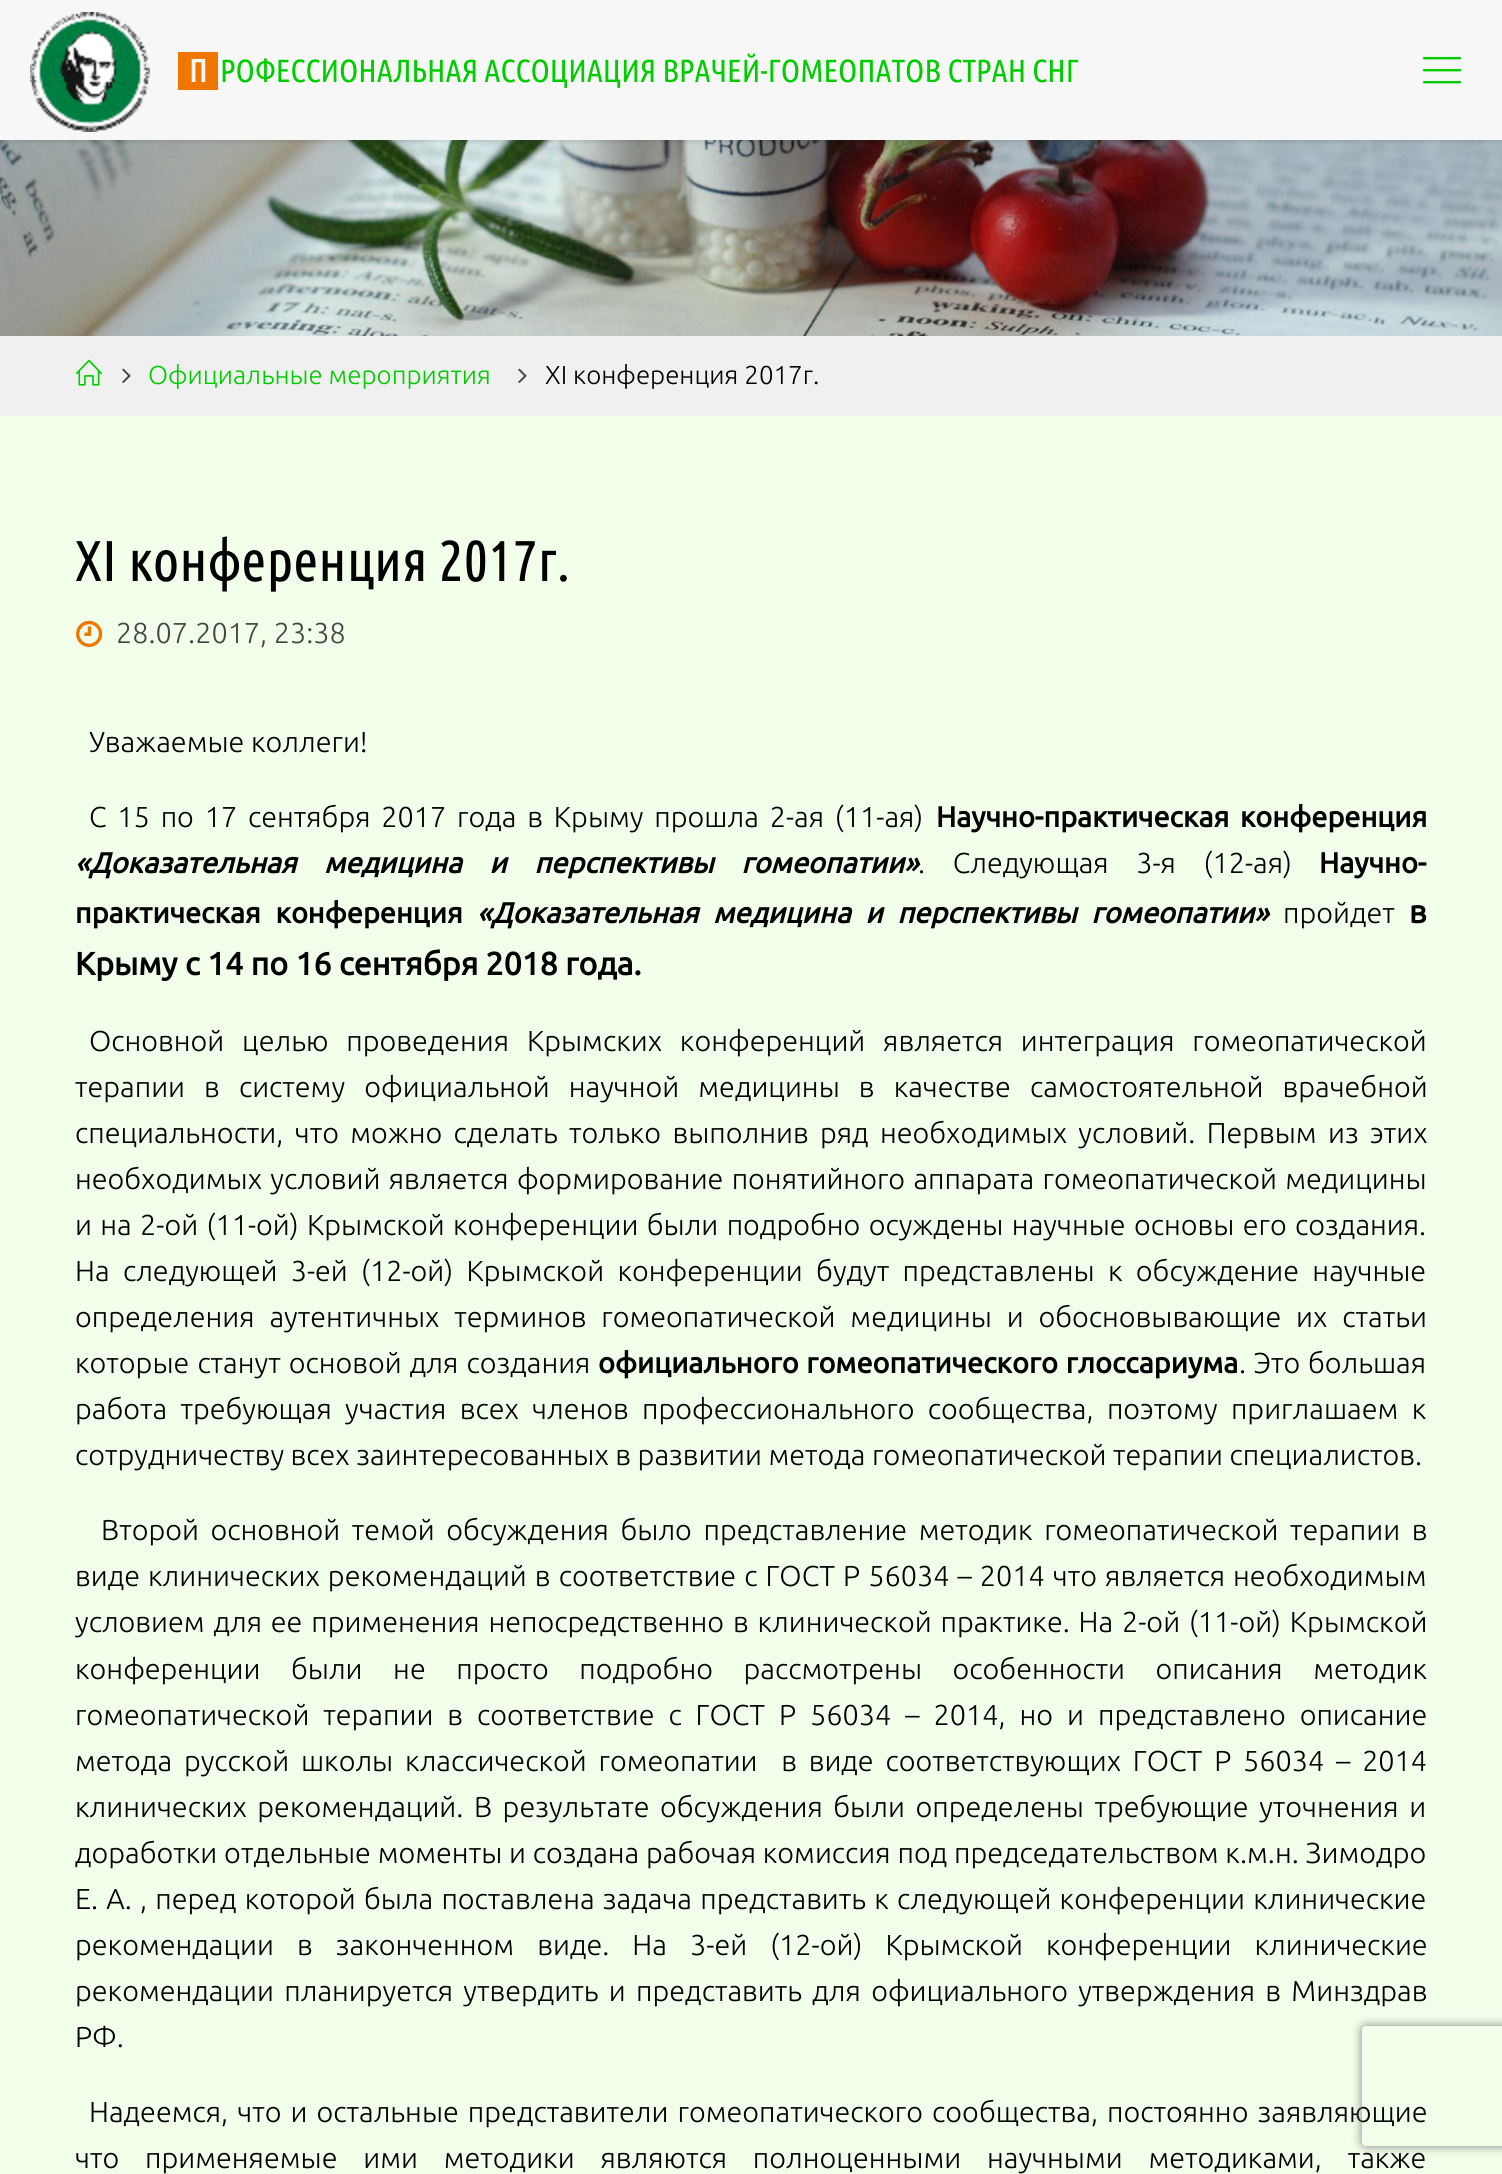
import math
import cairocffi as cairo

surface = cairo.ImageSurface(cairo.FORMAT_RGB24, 1502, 2174)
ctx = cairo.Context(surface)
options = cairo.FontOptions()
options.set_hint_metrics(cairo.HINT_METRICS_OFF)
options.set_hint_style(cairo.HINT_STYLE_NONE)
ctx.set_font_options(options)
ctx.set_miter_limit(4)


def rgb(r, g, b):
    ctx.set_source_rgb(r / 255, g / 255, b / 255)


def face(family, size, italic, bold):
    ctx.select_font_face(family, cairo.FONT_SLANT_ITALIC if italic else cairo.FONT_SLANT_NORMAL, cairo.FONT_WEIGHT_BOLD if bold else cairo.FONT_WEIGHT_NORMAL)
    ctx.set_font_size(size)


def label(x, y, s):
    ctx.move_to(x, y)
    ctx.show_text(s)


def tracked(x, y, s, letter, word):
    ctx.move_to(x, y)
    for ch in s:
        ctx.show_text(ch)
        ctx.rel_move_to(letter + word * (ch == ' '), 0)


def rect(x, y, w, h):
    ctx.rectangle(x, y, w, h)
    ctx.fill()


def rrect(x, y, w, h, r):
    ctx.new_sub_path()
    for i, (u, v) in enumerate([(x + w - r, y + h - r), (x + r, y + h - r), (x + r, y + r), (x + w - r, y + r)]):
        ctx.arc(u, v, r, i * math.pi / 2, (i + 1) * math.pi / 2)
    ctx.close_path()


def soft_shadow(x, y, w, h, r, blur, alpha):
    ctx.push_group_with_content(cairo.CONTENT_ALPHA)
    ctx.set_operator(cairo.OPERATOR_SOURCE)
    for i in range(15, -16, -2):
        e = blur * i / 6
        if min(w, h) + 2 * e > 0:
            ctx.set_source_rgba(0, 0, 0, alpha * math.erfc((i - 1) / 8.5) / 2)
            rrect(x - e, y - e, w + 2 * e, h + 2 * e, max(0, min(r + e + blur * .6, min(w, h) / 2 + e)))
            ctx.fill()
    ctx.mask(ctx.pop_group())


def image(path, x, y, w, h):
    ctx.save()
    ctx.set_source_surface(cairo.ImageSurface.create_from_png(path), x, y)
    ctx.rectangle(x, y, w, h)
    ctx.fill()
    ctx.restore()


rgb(242, 255, 234)
ctx.paint()
image('image2.png', 0, 140, 1502, 196)
rgb(0, 0, 0)
soft_shadow(0, 0, 1502, 140, 0, 3, 0.2)
rgb(247, 247, 247)
rect(0, 0, 1502, 140)
image('image0.png', 30, 12, 120, 120)
rgb(239, 119, 0)
rect(178, 52, 40, 38)
face('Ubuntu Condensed', 32, 0, 1)
rgb(247, 247, 247)
label(189, 82, 'П')
face('Ubuntu Condensed', 32, 0, 0)
rgb(0, 204, 0)
label(220, 82, 'РОФЕССИОНАЛЬНАЯ АССОЦИАЦИЯ ВРАЧЕЙ-ГОМЕОПАТОВ СТРАН СНГ')
image('image1.png', 1422, 56, 40, 28)
rgb(240, 240, 240)
rect(0, 336, 1502, 80)
image('image3.png', 76, 359, 26, 27)
image('image4.png', 122, 368, 9, 15)
face('Ubuntu Light', 25.9, 0, 0)
rgb(0, 204, 0)
label(148, 384, 'Официальные мероприятия')
image('image4.png', 518, 368, 9, 15)
rgb(0, 0, 0)
label(545, 384, 'ХI конференция 2017г.')
face('Ubuntu Condensed', 57.5, 0, 0)
label(75, 581, 'ХI конференция 2017г.')
image('image5.png', 76, 620, 27, 27)
face('Ubuntu Light', 28.8, 0, 0)
rgb(69, 69, 69)
label(116, 643, '28.07.2017, 23:38')
rgb(0, 0, 0)
label(89, 752, 'Уважаемые коллеги!')
tracked(89, 827, 'С 15 по 17 сентября 2017 года в Крыму прошла 2-ая (11-ая)', 0, 4.25)
face('Ubuntu', 28.8, 0, 1)
tracked(936, 827, 'Научно-практическая конференция', 0, 4)
face('Ubuntu', 28.8, 1, 1)
tracked(75, 873, '«Доказательная медицина и перспективы гомеопатии»', 0, 21)
face('Ubuntu Light', 28.8, 0, 0)
tracked(918, 873, '. Следующая 3-я (12-ая)', 0, 21)
face('Ubuntu', 28.8, 0, 1)
label(1319, 873, 'Научно-')
tracked(75, 923, 'практическая конференция', 0, 8)
face('Ubuntu', 28.8, 1, 1)
tracked(477, 923, '«Доказательная медицина и перспективы гомеопатии»', 0, 8)
face('Ubuntu Light', 28.8, 0, 0)
label(1283, 923, 'пройдет')
face('Ubuntu', 32, 0, 1)
label(1409, 923, 'в')
label(75, 975, 'Крыму с 14 по 16 сентября 2018 года.')
face('Ubuntu Light', 28.8, 0, 0)
tracked(89, 1051, 'Основной целью проведения Крымских конференций является интеграция гомеопатической', 0, 11.25)
tracked(75, 1097, 'терапии в систему официальной научной медицины в качестве самостоятельной врачебной', 0, 12.5)
tracked(75, 1143, 'специальности, что можно сделать только выполнив ряд необходимых условий. Первым из этих', 0, 4.75)
tracked(75, 1189, 'необходимых условий является формирование понятийного аппарата гомеопатической медицины', 0, 1.75)
tracked(75, 1235, 'и на 2-ой (11-ой) Крымской конференции были подробно осуждены научные основы его создания.', 0, 1.8)
tracked(75, 1281, 'На следующей 3-ей (12-ой) Крымской конференции будут представлены к обсуждение научные', 0, 6.75)
tracked(75, 1327, 'определения аутентичных терминов гомеопатической медицины и обосновывающие их статьи', 0, 8.25)
tracked(75, 1373, 'которые станут основой для создания', 0, 1.5)
face('Ubuntu', 28.8, 0, 1)
tracked(598, 1373, 'официального гомеопатического глоссариума', 0, 1)
face('Ubuntu Light', 28.8, 0, 0)
tracked(1239, 1373, '. Это большая', 0, 1)
tracked(75, 1419, 'работа требующая участия всех членов профессионального сообщества, поэтому приглашаем к', 0, 6.75)
label(75, 1465, 'сотрудничеству всех заинтересованных в развитии метода гомеопатической терапии специалистов.')
tracked(101, 1540, 'Второй основной темой обсуждения было представление методик гомеопатической терапии в', 0, 5)
tracked(75, 1586, 'виде клинических рекомендаций в соответствие с ГОСТ Р 56034 – 2014 что является необходимым', 0, 1.5)
tracked(75, 1632, 'условием для ее применения непосредственно в клинической практике. На 2-ой (11-ой) Крымской', 0, 2.25)
tracked(75, 1679, 'конференции были не просто подробно рассмотрены особенности описания методик', 0, 24)
tracked(75, 1725, 'гомеопатической терапии в соответствие с ГОСТ Р 56034 – 2014, но и представлено описание', 0, 7.4)
tracked(75, 1771, 'метода русской школы классической гомеопатии  в виде соответствующих ГОСТ Р 56034 – 2014', 0, 5.25)
tracked(75, 1817, 'клинических рекомендаций. В результате обсуждения были определены требующие уточнения и', 0, 4)
tracked(75, 1863, 'доработки отдельные моменты и создана рабочая комиссия под председательством к.м.н. Зимодро', 0, 0.25)
tracked(75, 1909, 'Е. А. , перед которой была поставлена задача представить к следующей конференции клинические', 0, 1.6)
tracked(75, 1955, 'рекомендации в законченном виде. На 3-ей (12-ой) Крымской конференции клинические', 0, 16.5)
tracked(75, 2001, 'рекомендации планируется утвердить и представить для официального утверждения в Минздрав', 0, 3.75)
label(75, 2047, 'РФ.')
tracked(89, 2122, 'Надеемся, что и остальные представители гомеопатического сообщества, постоянно заявляющие', 0, 2.5)
tracked(75, 2168, 'что применяемые ими методики являются полноценными научными методиками, также', 0, 19.25)
ctx.save()
ctx.set_fill_rule(cairo.FILL_RULE_EVEN_ODD)
ctx.new_path()
ctx.move_to(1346, 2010)
ctx.line_to(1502, 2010)
ctx.line_to(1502, 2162)
ctx.line_to(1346, 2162)
ctx.close_path()
ctx.move_to(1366, 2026)
ctx.line_to(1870, 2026)
ctx.curve_to(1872, 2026, 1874, 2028, 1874, 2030)
ctx.line_to(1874, 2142)
ctx.curve_to(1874, 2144, 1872, 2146, 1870, 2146)
ctx.line_to(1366, 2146)
ctx.curve_to(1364, 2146, 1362, 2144, 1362, 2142)
ctx.line_to(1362, 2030)
ctx.curve_to(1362, 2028, 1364, 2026, 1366, 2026)
ctx.close_path()
ctx.clip()
rgb(128, 128, 128)
soft_shadow(1362, 2026, 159, 120, 4, 5, 1)
ctx.restore()
surface.write_to_png('render.png')
